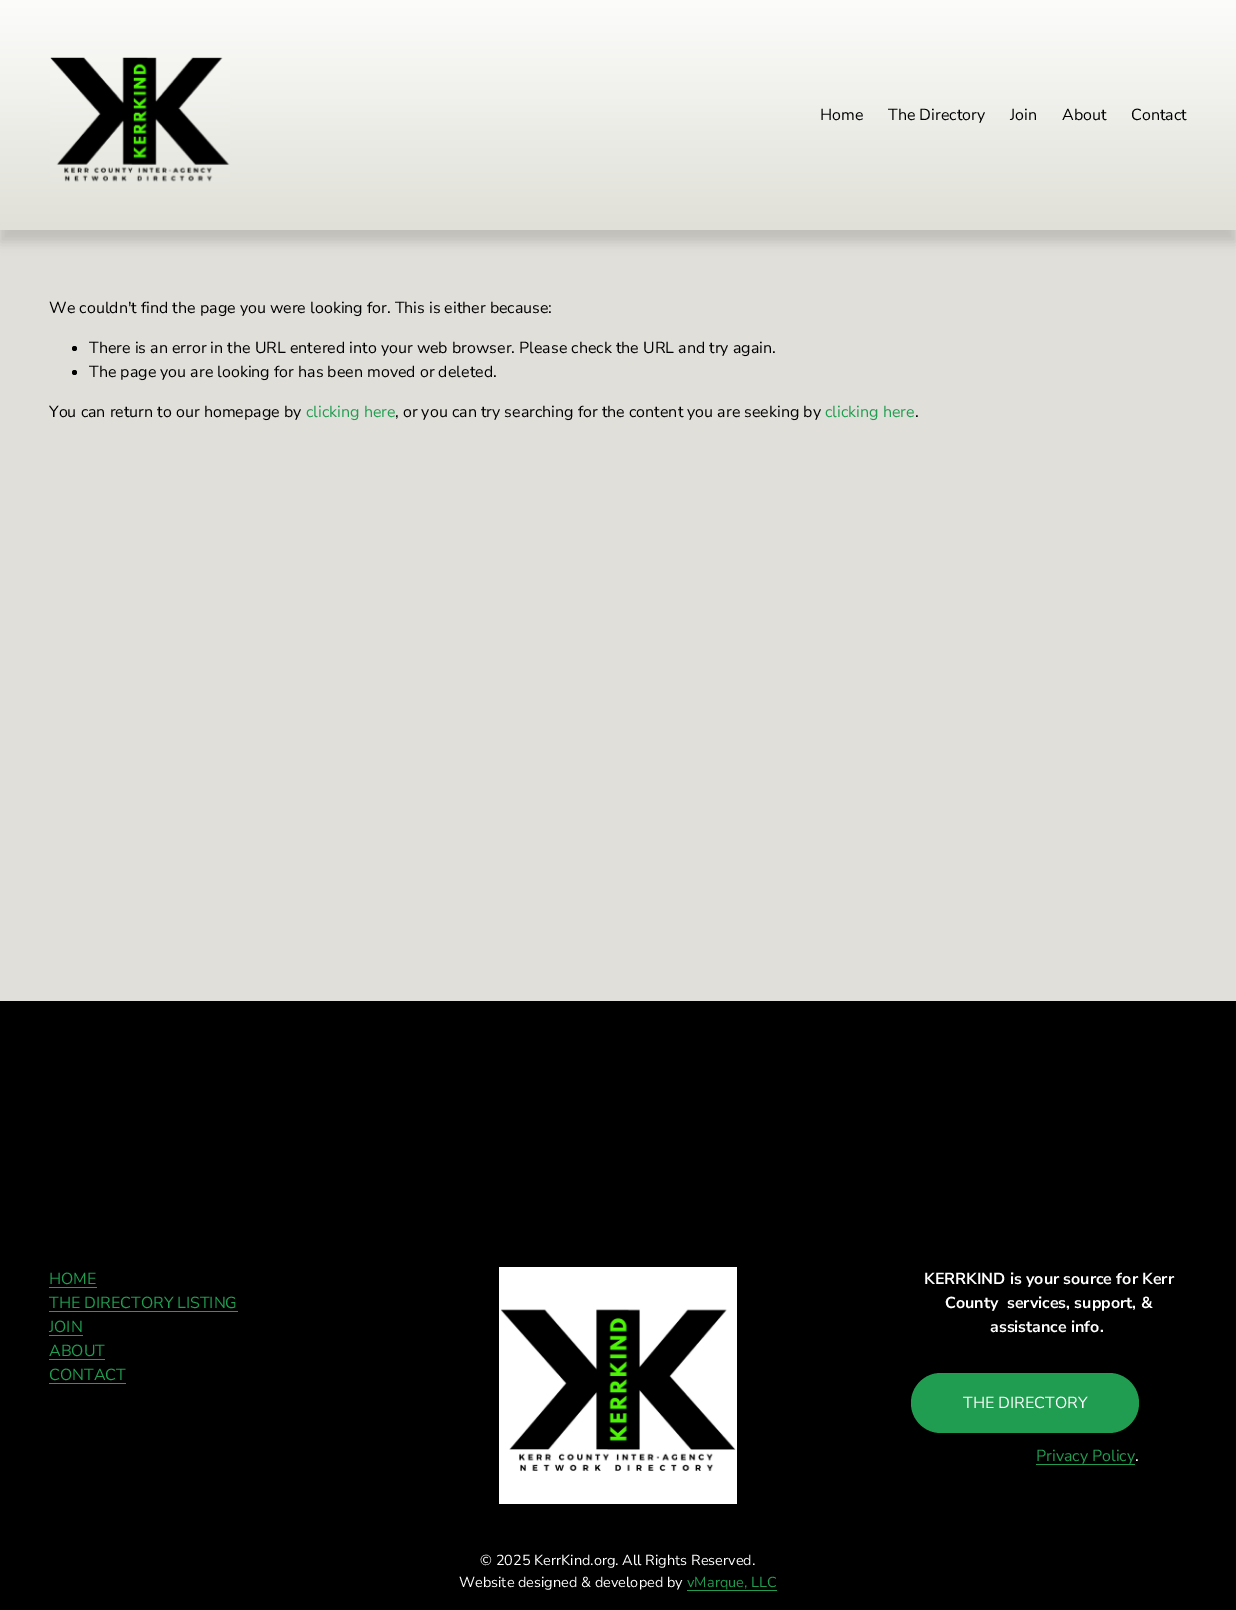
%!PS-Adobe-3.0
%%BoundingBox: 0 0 1236 1610
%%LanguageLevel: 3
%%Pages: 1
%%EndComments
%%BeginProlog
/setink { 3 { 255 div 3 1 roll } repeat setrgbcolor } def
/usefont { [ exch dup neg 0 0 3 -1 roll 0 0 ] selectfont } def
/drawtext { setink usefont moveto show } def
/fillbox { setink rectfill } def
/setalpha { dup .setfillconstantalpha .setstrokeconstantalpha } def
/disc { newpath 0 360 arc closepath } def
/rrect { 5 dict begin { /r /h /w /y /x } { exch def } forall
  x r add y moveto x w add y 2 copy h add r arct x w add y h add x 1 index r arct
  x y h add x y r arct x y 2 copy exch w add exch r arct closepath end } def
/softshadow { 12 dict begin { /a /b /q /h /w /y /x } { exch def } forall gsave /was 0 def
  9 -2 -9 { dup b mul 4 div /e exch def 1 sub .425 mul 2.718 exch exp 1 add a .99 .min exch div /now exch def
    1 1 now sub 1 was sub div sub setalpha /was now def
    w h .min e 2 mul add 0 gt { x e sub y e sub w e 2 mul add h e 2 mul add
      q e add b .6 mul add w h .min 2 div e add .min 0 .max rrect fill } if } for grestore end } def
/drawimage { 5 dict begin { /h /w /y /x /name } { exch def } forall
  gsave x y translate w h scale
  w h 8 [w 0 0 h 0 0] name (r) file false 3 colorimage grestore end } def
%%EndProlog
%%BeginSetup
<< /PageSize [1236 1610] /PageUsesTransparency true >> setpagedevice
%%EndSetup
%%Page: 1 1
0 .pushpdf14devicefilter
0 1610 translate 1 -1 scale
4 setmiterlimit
0 0 1236 1610 225 223 217 fillbox
191 190 184 setink
0 12 1236 230 0 6 1 softshadow
gsave 0 0 moveto 1236 0 lineto 1236 230 lineto 0 230 lineto closepath clip newpath
<< /ShadingType 2 /ColorSpace /DeviceRGB /Coords [618 0 618 230] /Extend [true true] /Function << /FunctionType 2 /Domain [0 1] /C0 [0.988 0.988 0.984] /C1 [0.878 0.878 0.847] /N 1 >> >> shfill grestore
(assets/img1.rgb) 50 57 180 125 drawimage
(Home) 820 120 /NunitoSans-Regular 16 0 0 0 drawtext
(The Directory) 888 120 /NunitoSans-Regular 16 0 0 0 drawtext
(Join) 1010 120 /NunitoSans-Regular 16 0 0 0 drawtext
(About) 1062 120 /NunitoSans-Regular 16 0 0 0 drawtext
(Contact) 1131 120 /NunitoSans-Regular 16 0 0 0 drawtext
(We couldn't find the page you were looking for. This is either because:) 49 313 /NunitoSans-Regular 16 0 0 0 drawtext
74.5 348.5 2.5 disc fill
(There is an error in the URL entered into your web browser. Please check the URL and try again.) 89 353 /NunitoSans-Regular 16 0 0 0 drawtext
74.5 372.5 2.5 disc fill
(The page you are looking for has been moved or deleted.) 89 377 /NunitoSans-Regular 16 0 0 0 drawtext
(You can return to our homepage by) 49 417 /NunitoSans-Regular 16 0 0 0 drawtext
(clicking here) 306 417 /NunitoSans-Regular 16 32 157 80 drawtext
(, or you can try searching for the content you are seeking by) 395 417 /NunitoSans-Regular 16 0 0 0 drawtext
(clicking here) 825 417 /NunitoSans-Regular 16 32 157 80 drawtext
(.) 915 417 /NunitoSans-Regular 16 0 0 0 drawtext
0 1001 1236 609 0 0 0 fillbox
(HOME) 49 1284 /NunitoSans-Regular 16 32 157 80 drawtext
49 1287 48 1 32 157 80 fillbox
(THE DIRECTORY LISTING) 49 1308 /NunitoSans-Regular 16 32 157 80 drawtext
49 1311 189 1 32 157 80 fillbox
(JOIN) 49 1332 /NunitoSans-Regular 16 32 157 80 drawtext
49 1335 34 1 32 157 80 fillbox
(ABOUT) 49 1356 /NunitoSans-Regular 16 32 157 80 drawtext
49 1359 56 1 32 157 80 fillbox
(CONTACT) 49 1380 /NunitoSans-Regular 16 32 157 80 drawtext
49 1383 77 1 32 157 80 fillbox
(assets/img2.rgb) 499 1267 238 237 drawimage
(KERRKIND is your source for Kerr) 924 1284 /NunitoSans-Bold 16 255 255 255 drawtext
(County  services, support, &) 945 1308 /NunitoSans-Bold 16 255 255 255 drawtext
(assistance info.) 990 1332 /NunitoSans-Bold 16 255 255 255 drawtext
32 157 80 setink
911 1373 228 60 30 rrect fill
(THE DIRECTORY) 963 1408 /NunitoSans-Regular 16 255 255 255 drawtext
(Privacy Policy) 1036 1461 /NunitoSans-Regular 16 32 157 80 drawtext
1036 1464 99 1 32 157 80 fillbox
(.) 1135 1461 /NunitoSans-Regular 16 255 255 255 drawtext
(© 2025 KerrKind.org. All Rights Reserved.) 480 1565 /NunitoSans-Regular 14.5 255 255 255 drawtext
(Website designed & developed by) 459 1587 /NunitoSans-Regular 14.5 255 255 255 drawtext
(vMarque, LLC) 687 1587 /NunitoSans-Regular 14.5 32 157 80 drawtext
687 1590 90 1 32 157 80 fillbox
.poppdf14devicefilter showpage
%%EOF
